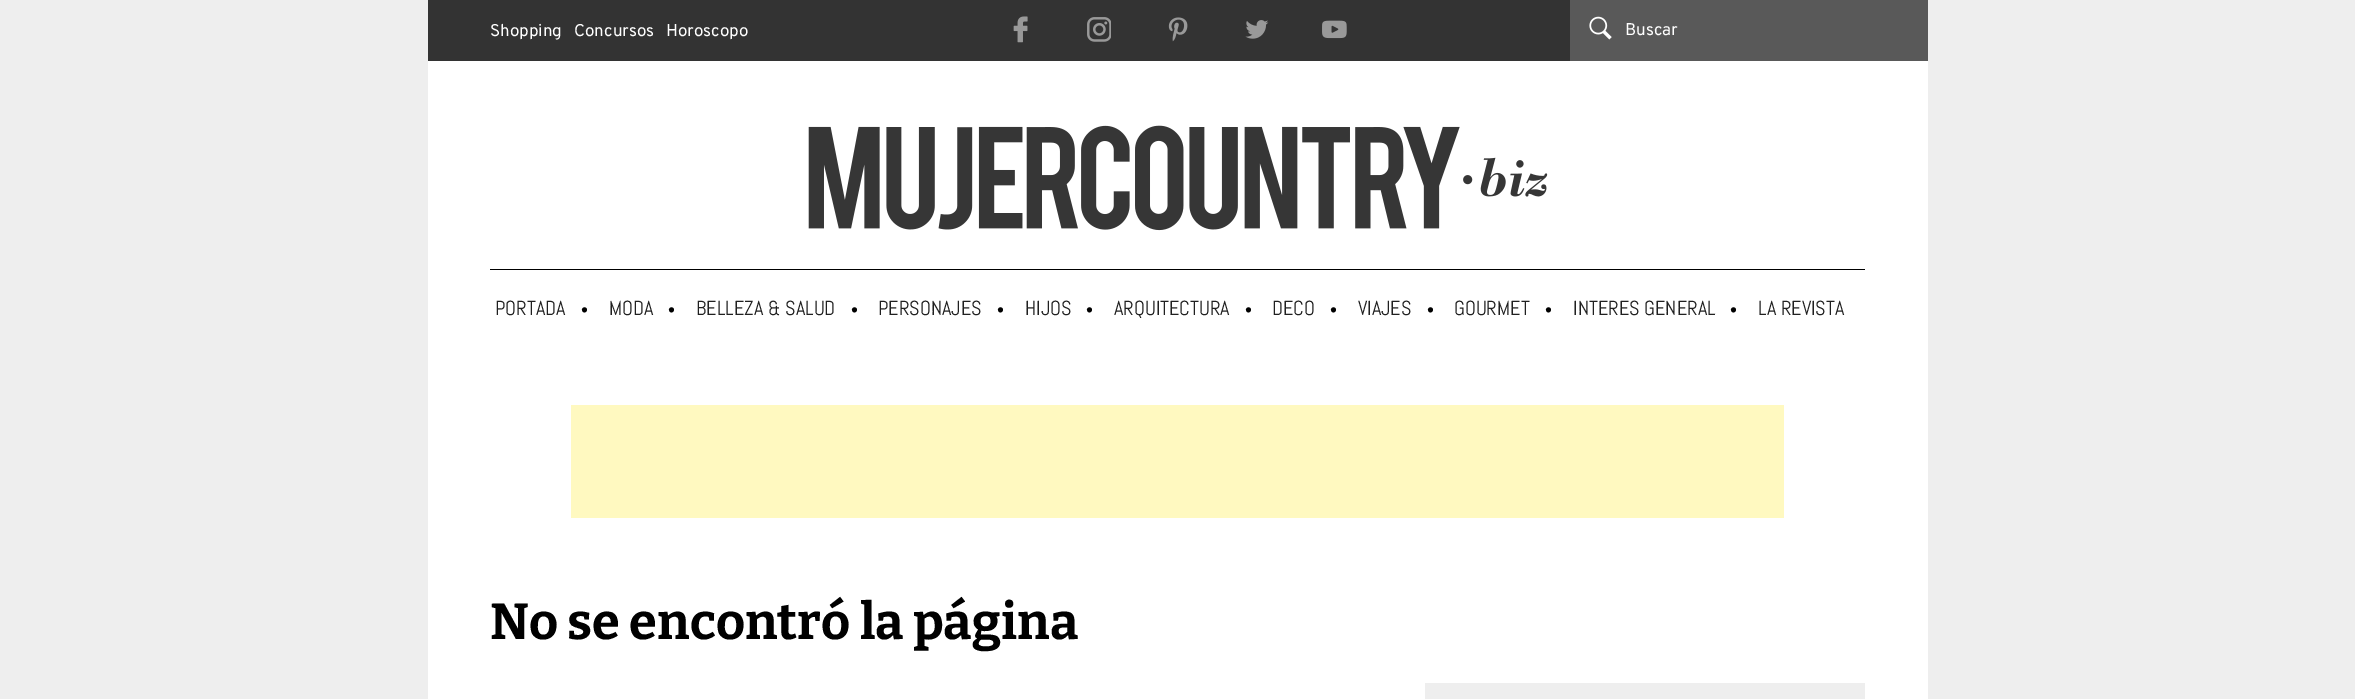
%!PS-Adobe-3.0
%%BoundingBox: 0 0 2355 699
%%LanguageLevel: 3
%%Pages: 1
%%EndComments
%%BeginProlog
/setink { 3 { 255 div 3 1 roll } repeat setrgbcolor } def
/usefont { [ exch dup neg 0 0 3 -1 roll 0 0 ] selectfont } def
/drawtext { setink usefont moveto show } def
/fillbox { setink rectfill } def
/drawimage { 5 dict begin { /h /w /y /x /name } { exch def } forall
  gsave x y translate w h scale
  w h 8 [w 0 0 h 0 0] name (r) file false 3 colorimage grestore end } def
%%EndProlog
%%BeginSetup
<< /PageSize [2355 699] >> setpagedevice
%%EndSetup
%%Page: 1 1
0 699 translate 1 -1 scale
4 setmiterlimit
0 0 2355 699 238 238 238 fillbox
428 61 1500 638 255 255 255 fillbox
428 0 1142 61 51 51 51 fillbox
(Shopping) 490 36 /Overpass-Regular 17 255 255 255 drawtext
(Concursos) 574 36 /Overpass-Regular 17 255 255 255 drawtext
(Horoscopo) 666 36 /Overpass-Regular 17 255 255 255 drawtext
(assets/img1.rgb) 1013 16 15 27 drawimage
(assets/img2.rgb) 1087 17 24 25 drawimage
(assets/img3.rgb) 1168 17 20 25 drawimage
(assets/img4.rgb) 1245 20 24 19 drawimage
(assets/img5.rgb) 1322 20 25 19 drawimage
1570 0 358 61 89 89 89 fillbox
(assets/img6.rgb) 1589 16 23 24 drawimage
(Buscar) 1625 35 /Overpass-Regular 17 255 255 255 drawtext
(assets/img7.rgb) 808 125 740 106 drawimage
490 269 1375 1 0 0 0 fillbox
(PORTADA) 495 315 /Abel-Regular 20.25 32 32 32 drawtext
(•) 581 315 /Abel-Regular 15 0 0 0 drawtext
(MODA) 609 315 /Abel-Regular 20.25 32 32 32 drawtext
(•) 668 315 /Abel-Regular 15 0 0 0 drawtext
(BELLEZA & SALUD) 696 315 /Abel-Regular 20.25 32 32 32 drawtext
(•) 851 315 /Abel-Regular 15 0 0 0 drawtext
(PERSONAJES) 878 315 /Abel-Regular 20.25 32 32 32 drawtext
(•) 997 315 /Abel-Regular 15 0 0 0 drawtext
(HIJOS) 1025 315 /Abel-Regular 20.25 32 32 32 drawtext
(•) 1086 315 /Abel-Regular 15 0 0 0 drawtext
(ARQUITECTURA) 1114 315 /Abel-Regular 20.25 32 32 32 drawtext
(•) 1245 315 /Abel-Regular 15 0 0 0 drawtext
(DECO) 1272 315 /Abel-Regular 20.25 32 32 32 drawtext
(•) 1330 315 /Abel-Regular 15 0 0 0 drawtext
(VIAJES) 1358 315 /Abel-Regular 20.25 32 32 32 drawtext
(•) 1427 315 /Abel-Regular 15 0 0 0 drawtext
(GOURMET) 1454 315 /Abel-Regular 20.25 32 32 32 drawtext
(•) 1545 315 /Abel-Regular 15 0 0 0 drawtext
(INTERES GENERAL) 1573 315 /Abel-Regular 20.25 32 32 32 drawtext
(•) 1730 315 /Abel-Regular 15 0 0 0 drawtext
(LA REVISTA) 1758 315 /Abel-Regular 20.25 32 32 32 drawtext
571 405 1213 113 255 249 192 fillbox
(No se encontró la página) 490 639 /Bitter-Bold 50.6 0 0 0 drawtext
1425 683 440 16 238 238 238 fillbox
showpage
%%EOF
